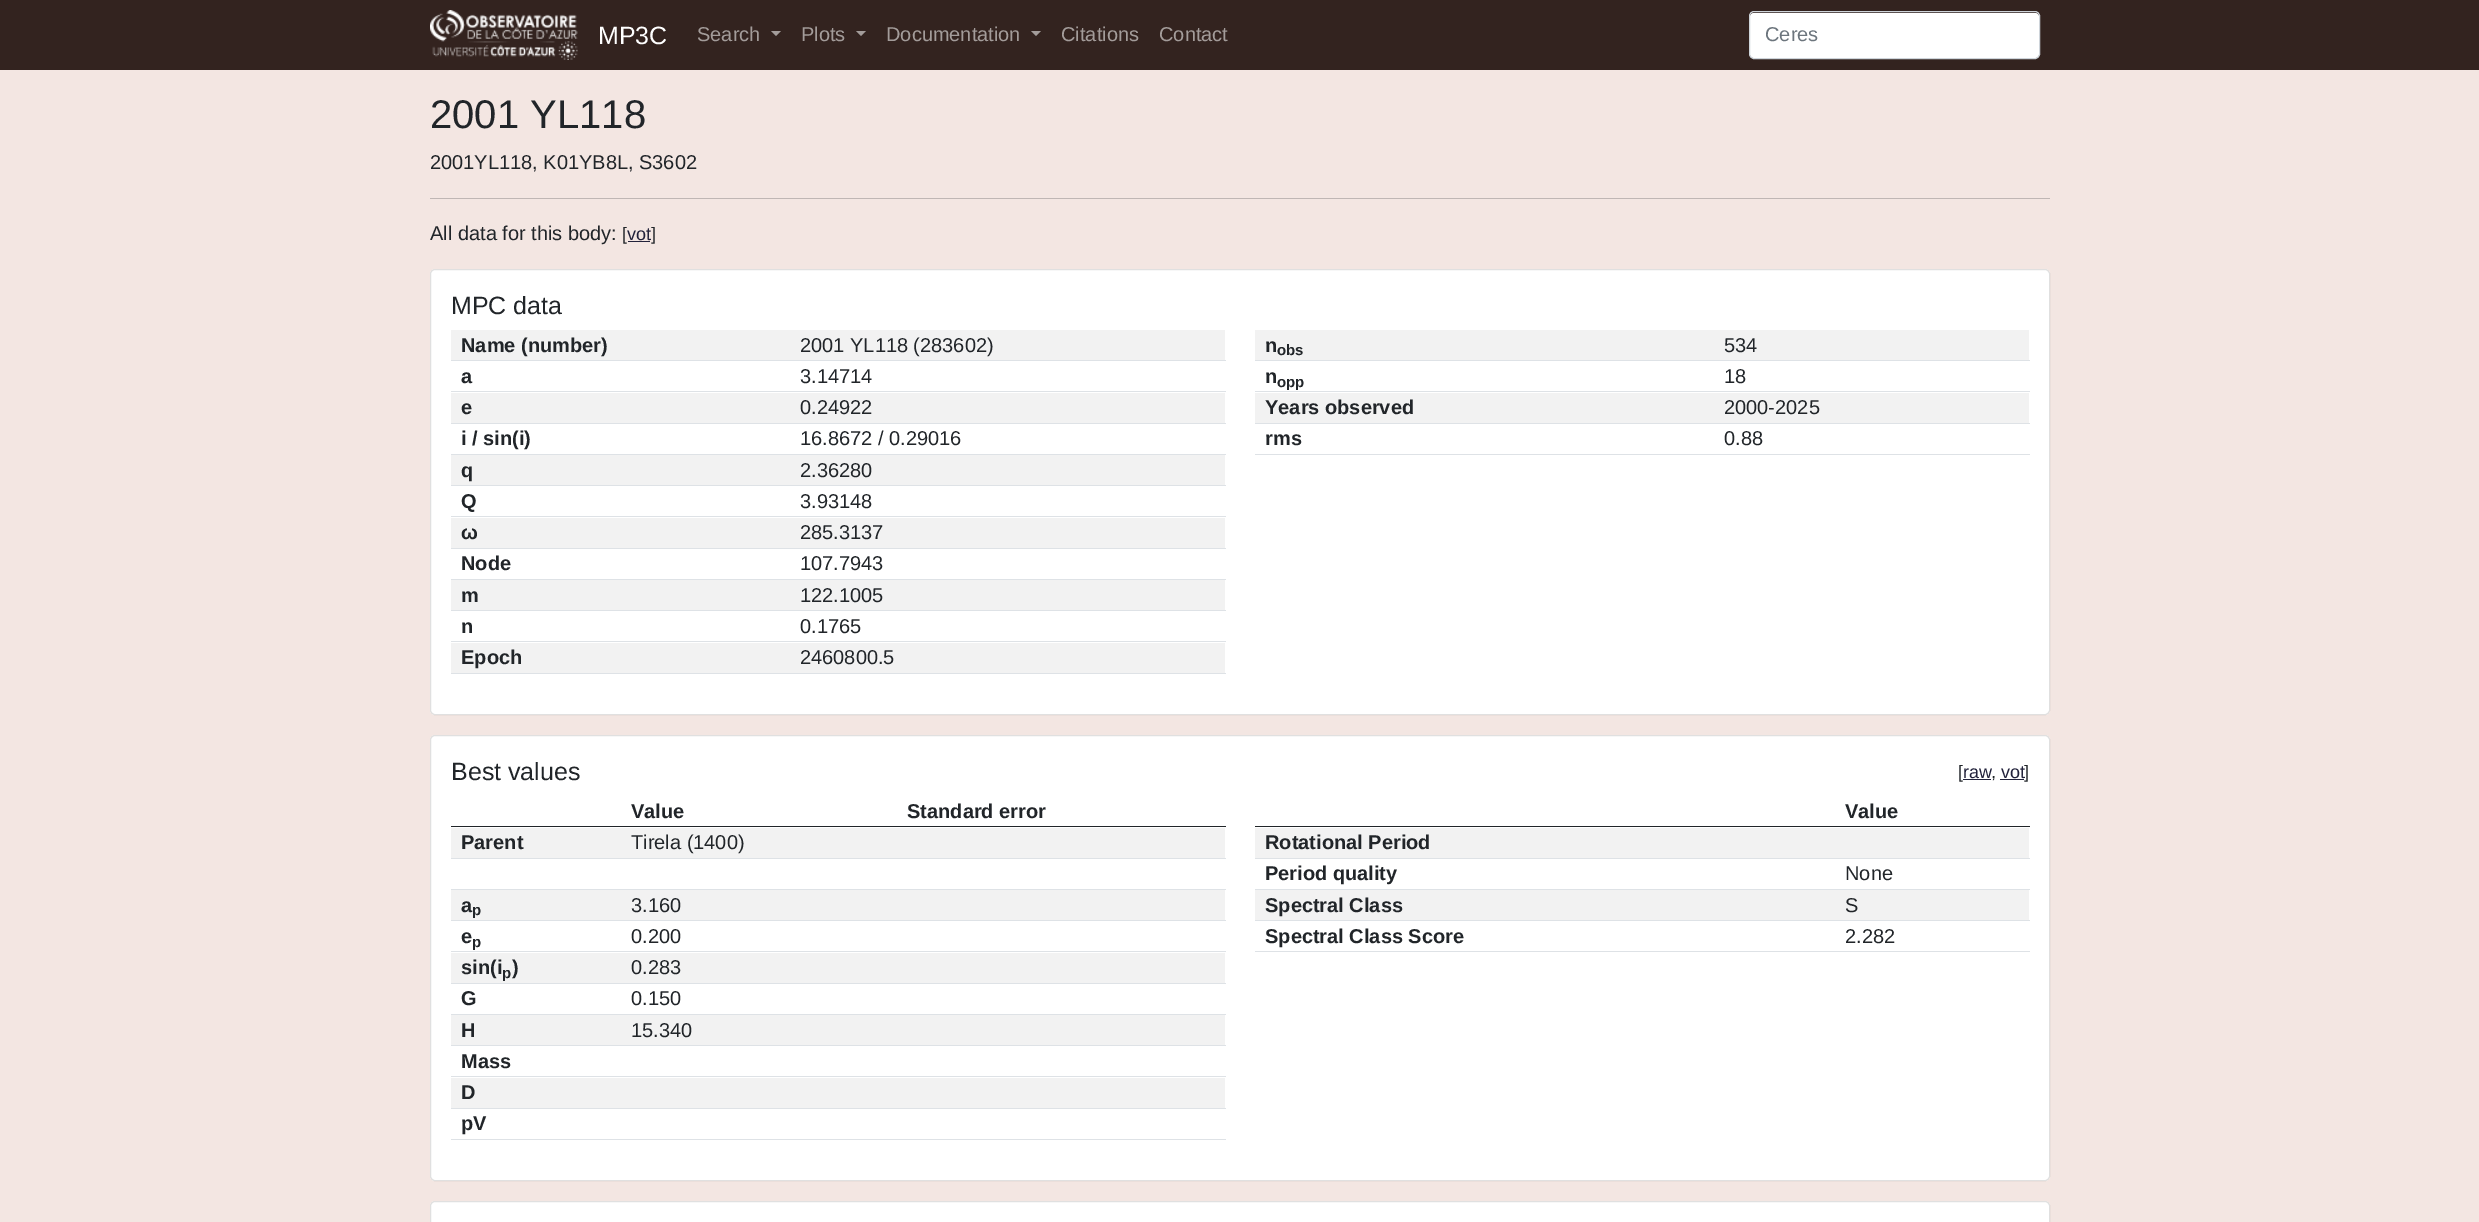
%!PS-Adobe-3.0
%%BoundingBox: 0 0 2479 1222
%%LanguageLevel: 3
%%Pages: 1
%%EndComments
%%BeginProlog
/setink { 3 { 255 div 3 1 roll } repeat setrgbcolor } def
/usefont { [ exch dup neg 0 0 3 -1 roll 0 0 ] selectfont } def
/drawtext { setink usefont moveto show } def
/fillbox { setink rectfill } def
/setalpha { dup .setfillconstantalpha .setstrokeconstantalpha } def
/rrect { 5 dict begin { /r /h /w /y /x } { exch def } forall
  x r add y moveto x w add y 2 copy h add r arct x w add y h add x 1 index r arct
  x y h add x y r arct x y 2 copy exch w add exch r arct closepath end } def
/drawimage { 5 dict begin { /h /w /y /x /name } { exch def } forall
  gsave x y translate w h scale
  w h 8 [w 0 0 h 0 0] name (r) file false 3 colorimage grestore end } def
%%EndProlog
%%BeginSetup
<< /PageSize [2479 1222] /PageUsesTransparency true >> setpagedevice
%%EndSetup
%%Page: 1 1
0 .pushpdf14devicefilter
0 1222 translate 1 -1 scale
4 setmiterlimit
0 0 2479 1222 243 230 226 fillbox
0 0 2479 70 51 35 31 fillbox
(assets/img1.rgb) 430 10 148 50 drawimage
(MP3C) 598 44 /LiberationSans-Regular 25 255 255 255 drawtext
(Search) 697 41 /LiberationSans-Regular 20 163 156 154 drawtext
771 31 moveto 781 31 lineto 776 36 lineto closepath fill
(Plots) 801 41 /LiberationSans-Regular 20 163 156 154 drawtext
856 31 moveto 866 31 lineto 861 36 lineto closepath fill
(Documentation) 886 41 /LiberationSans-Regular 20 163 156 154 drawtext
1031 31 moveto 1041 31 lineto 1036 36 lineto closepath fill
(Citations) 1061 41 /LiberationSans-Regular 20 163 156 154 drawtext
(Contact) 1159 41 /LiberationSans-Regular 20 163 156 154 drawtext
255 255 255 setink
1750 13 289 45 4 rrect fill
206 212 218 setink
1749.5 11.5 290 47 4.5 rrect stroke
(Ceres) 1765 41 /LiberationSans-Regular 20 108 117 125 drawtext
(2001 YL118) 430 128 /LiberationSans-Regular 40 33 37 41 drawtext
(2001YL118, K01YB8L, S3602) 430 169 /LiberationSans-Regular 20 33 37 41 drawtext
430 198 1620 1 191 182 180 fillbox
(All data for this body:) 430 240 /LiberationSans-Regular 20 33 37 41 drawtext
([) 622 240 /LiberationSans-Regular 18 33 37 41 drawtext
628 241 22 1 34 34 59 fillbox
(vot) 627 240 /LiberationSans-Regular 18 34 34 59 drawtext
(]) 651 240 /LiberationSans-Regular 18 33 37 41 drawtext
255 255 255 setink
430 269 1620 446 5 rrect fill
0.12 setalpha
0 0 0 setink
430.5 269.5 1619 445 4.5 rrect stroke
1 setalpha
(MPC data) 451 314 /LiberationSans-Regular 25 33 37 41 drawtext
451 330 774 30 242 242 242 fillbox
(Name \(number\)) 461 352 /LiberationSans-Bold 20 33 37 41 drawtext
451 360 775 1 222 226 230 fillbox
(2001 YL118 \(283602\)) 800 352 /LiberationSans-Regular 20 33 37 41 drawtext
(a) 461 383 /LiberationSans-Bold 20 33 37 41 drawtext
451 391 775 1 222 226 230 fillbox
(3.14714) 800 383 /LiberationSans-Regular 20 33 37 41 drawtext
451 393 774 30 242 242 242 fillbox
(e) 461 414 /LiberationSans-Bold 20 33 37 41 drawtext
451 423 775 1 222 226 230 fillbox
(0.24922) 800 414 /LiberationSans-Regular 20 33 37 41 drawtext
(i / sin\(i\)) 461 445 /LiberationSans-Bold 20 33 37 41 drawtext
451 454 775 1 222 226 230 fillbox
(16.8672 / 0.29016) 800 445 /LiberationSans-Regular 20 33 37 41 drawtext
451 455 774 30 242 242 242 fillbox
(q) 461 477 /LiberationSans-Bold 20 33 37 41 drawtext
451 485 775 1 222 226 230 fillbox
(2.36280) 800 477 /LiberationSans-Regular 20 33 37 41 drawtext
(Q) 461 508 /LiberationSans-Bold 20 33 37 41 drawtext
451 516 775 1 222 226 230 fillbox
(3.93148) 800 508 /LiberationSans-Regular 20 33 37 41 drawtext
451 518 774 30 242 242 242 fillbox
(ω) 461 539 /LiberationSans-Bold 20 33 37 41 drawtext
451 548 775 1 222 226 230 fillbox
(285.3137) 800 539 /LiberationSans-Regular 20 33 37 41 drawtext
(Node) 461 570 /LiberationSans-Bold 20 33 37 41 drawtext
451 579 775 1 222 226 230 fillbox
(107.7943) 800 570 /LiberationSans-Regular 20 33 37 41 drawtext
451 580 774 30 242 242 242 fillbox
(m) 461 602 /LiberationSans-Bold 20 33 37 41 drawtext
451 610 775 1 222 226 230 fillbox
(122.1005) 800 602 /LiberationSans-Regular 20 33 37 41 drawtext
(n) 461 633 /LiberationSans-Bold 20 33 37 41 drawtext
451 641 775 1 222 226 230 fillbox
(0.1765) 800 633 /LiberationSans-Regular 20 33 37 41 drawtext
451 643 774 30 242 242 242 fillbox
(Epoch) 461 664 /LiberationSans-Bold 20 33 37 41 drawtext
451 673 775 1 222 226 230 fillbox
(2460800.5) 800 664 /LiberationSans-Regular 20 33 37 41 drawtext
1255 330 774 30 242 242 242 fillbox
(n) 1265 352 /LiberationSans-Bold 20 33 37 41 drawtext
(obs) 1277 355 /LiberationSans-Bold 15 33 37 41 drawtext
1255 360 775 1 222 226 230 fillbox
(534) 1724 352 /LiberationSans-Regular 20 33 37 41 drawtext
(n) 1265 383 /LiberationSans-Bold 20 33 37 41 drawtext
(opp) 1277 387 /LiberationSans-Bold 15 33 37 41 drawtext
1255 391 775 1 222 226 230 fillbox
(18) 1724 383 /LiberationSans-Regular 20 33 37 41 drawtext
1255 393 774 30 242 242 242 fillbox
(Years observed) 1265 414 /LiberationSans-Bold 20 33 37 41 drawtext
1255 423 775 1 222 226 230 fillbox
(2000-2025) 1724 414 /LiberationSans-Regular 20 33 37 41 drawtext
(rms) 1265 445 /LiberationSans-Bold 20 33 37 41 drawtext
1255 454 775 1 222 226 230 fillbox
(0.88) 1724 445 /LiberationSans-Regular 20 33 37 41 drawtext
255 255 255 setink
430 735 1620 446 5 rrect fill
0.12 setalpha
0 0 0 setink
430.5 735.5 1619 445 4.5 rrect stroke
1 setalpha
(Best values) 451 780 /LiberationSans-Regular 25 33 37 41 drawtext
([) 1958 778 /LiberationSans-Regular 18 33 37 41 drawtext
(raw) 1963 778 /LiberationSans-Regular 18 34 34 59 drawtext
(,) 1991 778 /LiberationSans-Regular 18 33 37 41 drawtext
1963 779 28 1 34 34 59 fillbox
2000 779 24 1 34 34 59 fillbox
(vot) 2001 778 /LiberationSans-Regular 18 34 34 59 drawtext
(]) 2024 778 /LiberationSans-Regular 18 33 37 41 drawtext
(Value) 631 818 /LiberationSans-Bold 20 33 37 41 drawtext
451 826 775 1 33 37 41 fillbox
(Standard error) 907 818 /LiberationSans-Bold 20 33 37 41 drawtext
451 828 774 30 242 242 242 fillbox
(Parent) 461 849 /LiberationSans-Bold 20 33 37 41 drawtext
(Tirela \(1400\)) 631 849 /LiberationSans-Regular 20 33 37 41 drawtext
451 858 775 1 222 226 230 fillbox
451 889 775 1 222 226 230 fillbox
451 890 774 30 242 242 242 fillbox
(a) 461 912 /LiberationSans-Bold 20 33 37 41 drawtext
(p) 472 915 /LiberationSans-Bold 15 33 37 41 drawtext
(3.160) 631 912 /LiberationSans-Regular 20 33 37 41 drawtext
451 920 775 1 222 226 230 fillbox
(e) 461 943 /LiberationSans-Bold 20 33 37 41 drawtext
(p) 472 947 /LiberationSans-Bold 15 33 37 41 drawtext
(0.200) 631 943 /LiberationSans-Regular 20 33 37 41 drawtext
451 951 775 1 222 226 230 fillbox
451 953 774 30 242 242 242 fillbox
(sin\(i) 461 974 /LiberationSans-Bold 20 33 37 41 drawtext
(p) 502 978 /LiberationSans-Bold 15 33 37 41 drawtext
(\)) 512 974 /LiberationSans-Bold 20 33 37 41 drawtext
(0.283) 631 974 /LiberationSans-Regular 20 33 37 41 drawtext
451 983 775 1 222 226 230 fillbox
(G) 461 1005 /LiberationSans-Bold 20 33 37 41 drawtext
(0.150) 631 1005 /LiberationSans-Regular 20 33 37 41 drawtext
451 1014 775 1 222 226 230 fillbox
451 1015 774 30 242 242 242 fillbox
(H) 461 1037 /LiberationSans-Bold 20 33 37 41 drawtext
(15.340) 631 1037 /LiberationSans-Regular 20 33 37 41 drawtext
451 1045 775 1 222 226 230 fillbox
(Mass) 461 1068 /LiberationSans-Bold 20 33 37 41 drawtext
451 1076 775 1 222 226 230 fillbox
451 1078 774 30 242 242 242 fillbox
(D) 461 1099 /LiberationSans-Bold 20 33 37 41 drawtext
451 1108 775 1 222 226 230 fillbox
(pV) 461 1130 /LiberationSans-Bold 20 33 37 41 drawtext
451 1139 775 1 222 226 230 fillbox
1255 826 775 1 33 37 41 fillbox
(Value) 1845 818 /LiberationSans-Bold 20 33 37 41 drawtext
1255 828 774 30 242 242 242 fillbox
(Rotational Period) 1265 849 /LiberationSans-Bold 20 33 37 41 drawtext
1255 858 775 1 222 226 230 fillbox
(Period quality) 1265 880 /LiberationSans-Bold 20 33 37 41 drawtext
1255 889 775 1 222 226 230 fillbox
(None) 1845 880 /LiberationSans-Regular 20 33 37 41 drawtext
1255 890 774 30 242 242 242 fillbox
(Spectral Class) 1265 912 /LiberationSans-Bold 20 33 37 41 drawtext
1255 920 775 1 222 226 230 fillbox
(S) 1845 912 /LiberationSans-Regular 20 33 37 41 drawtext
(Spectral Class Score) 1265 943 /LiberationSans-Bold 20 33 37 41 drawtext
1255 951 775 1 222 226 230 fillbox
(2.282) 1845 943 /LiberationSans-Regular 20 33 37 41 drawtext
255 255 255 setink
430 1201 1620 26 5 rrect fill
0.12 setalpha
0 0 0 setink
430.5 1201.5 1619 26 4.5 rrect stroke
.poppdf14devicefilter showpage
%%EOF
